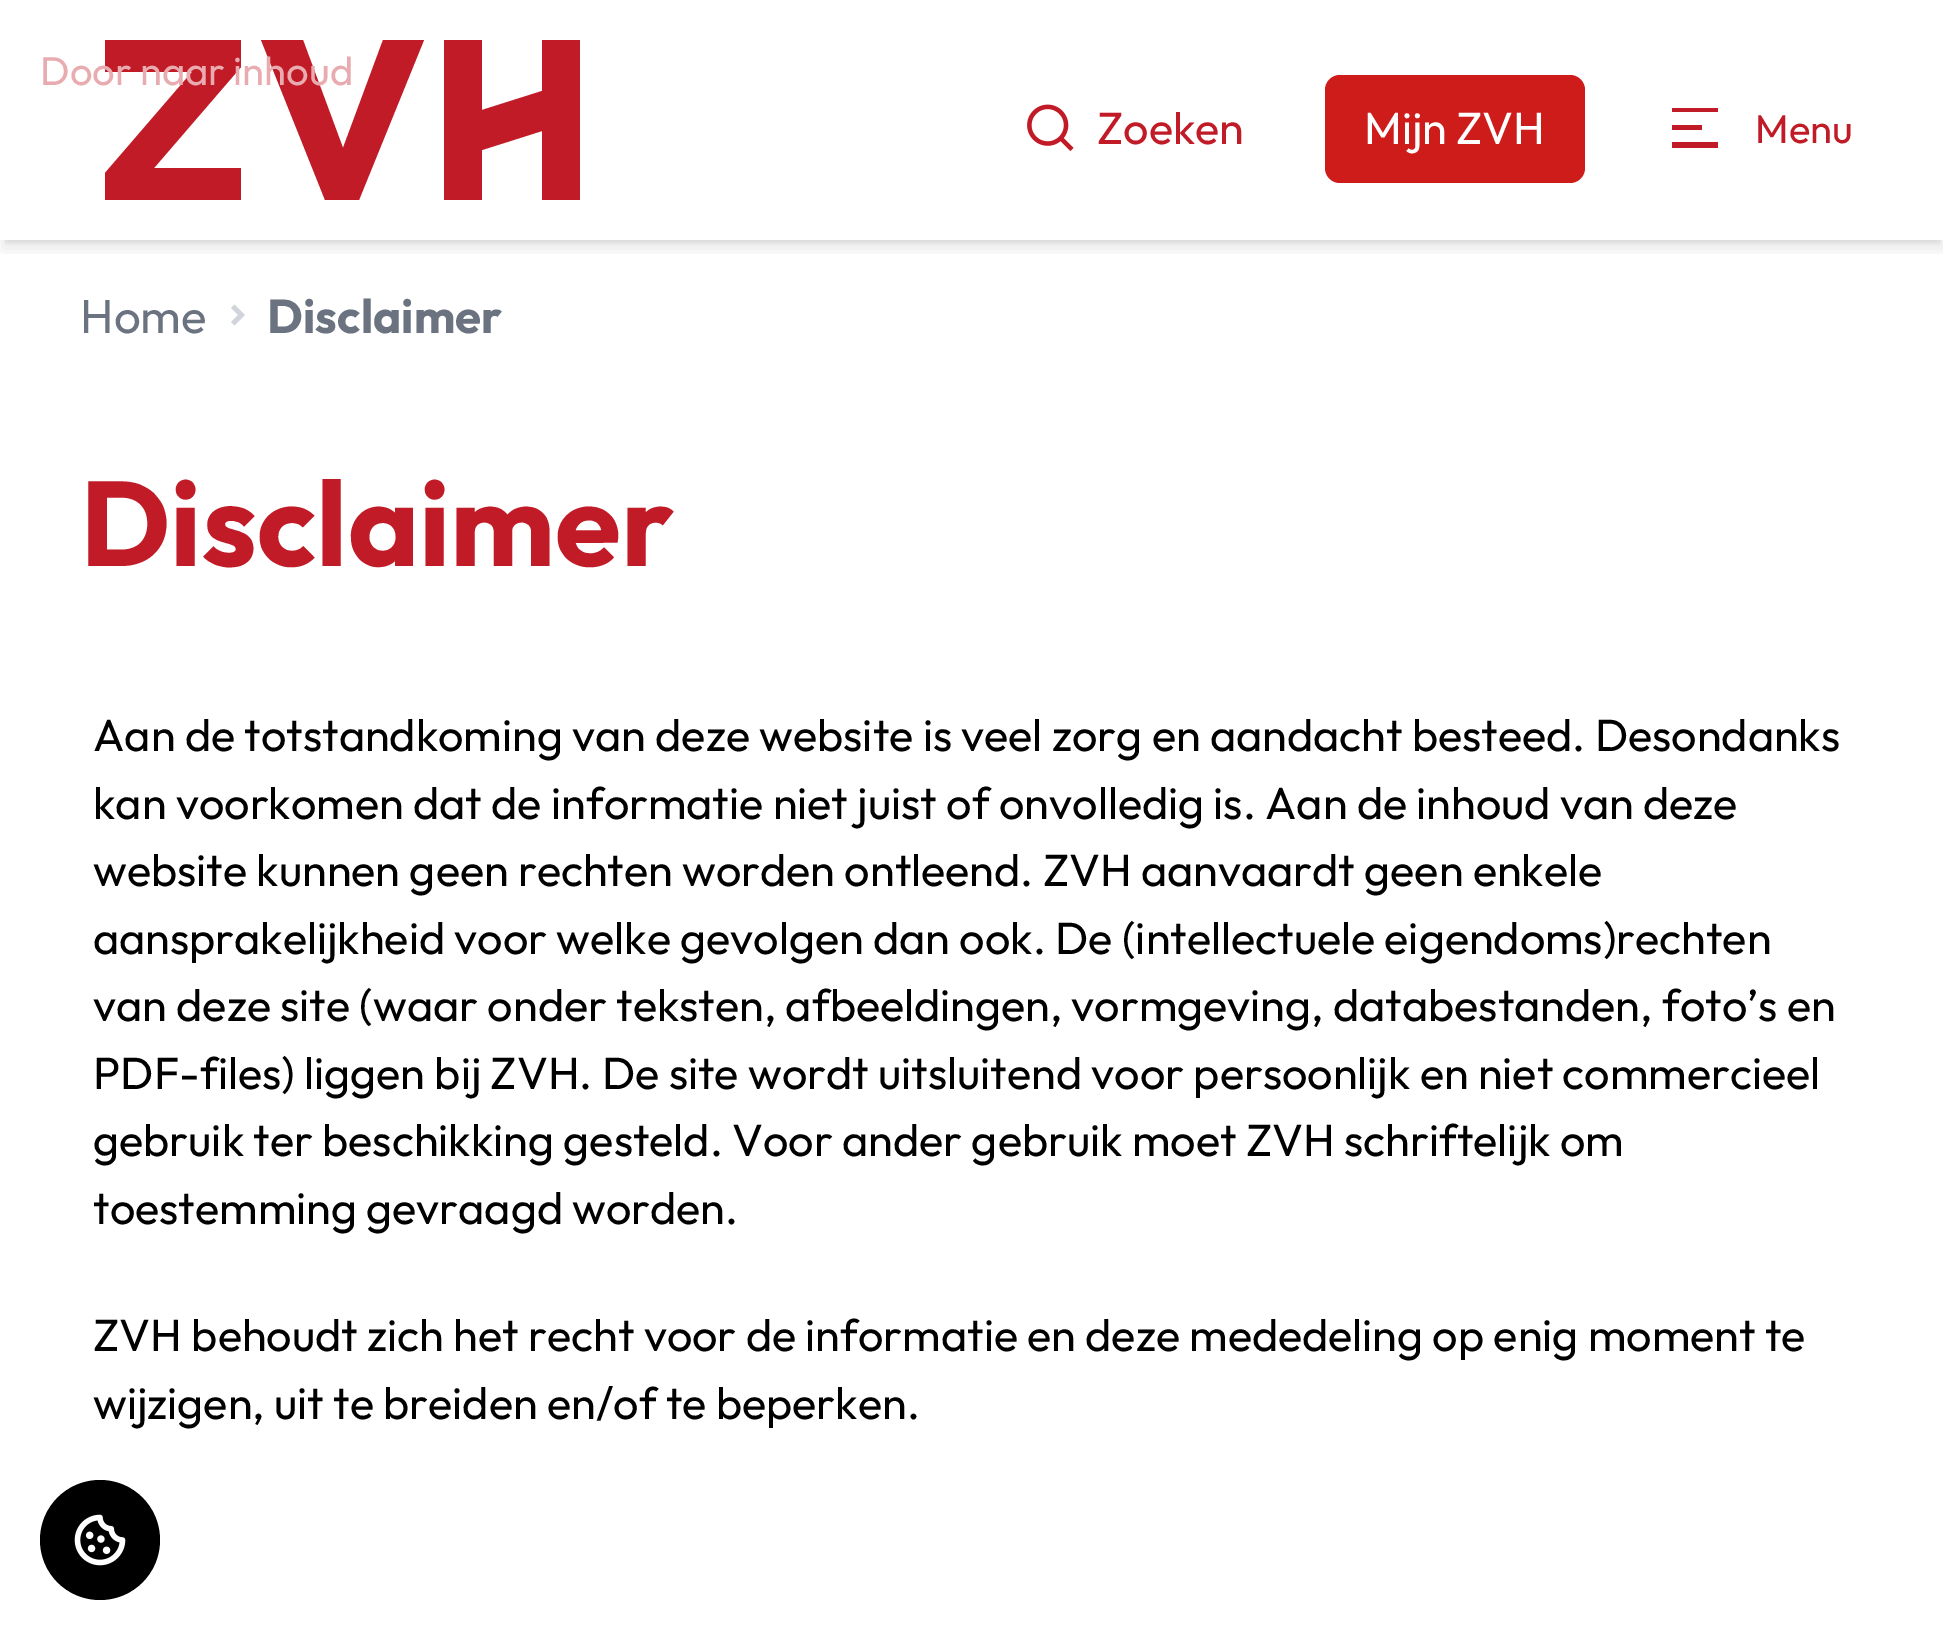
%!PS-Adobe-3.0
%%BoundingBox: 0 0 1943 1639
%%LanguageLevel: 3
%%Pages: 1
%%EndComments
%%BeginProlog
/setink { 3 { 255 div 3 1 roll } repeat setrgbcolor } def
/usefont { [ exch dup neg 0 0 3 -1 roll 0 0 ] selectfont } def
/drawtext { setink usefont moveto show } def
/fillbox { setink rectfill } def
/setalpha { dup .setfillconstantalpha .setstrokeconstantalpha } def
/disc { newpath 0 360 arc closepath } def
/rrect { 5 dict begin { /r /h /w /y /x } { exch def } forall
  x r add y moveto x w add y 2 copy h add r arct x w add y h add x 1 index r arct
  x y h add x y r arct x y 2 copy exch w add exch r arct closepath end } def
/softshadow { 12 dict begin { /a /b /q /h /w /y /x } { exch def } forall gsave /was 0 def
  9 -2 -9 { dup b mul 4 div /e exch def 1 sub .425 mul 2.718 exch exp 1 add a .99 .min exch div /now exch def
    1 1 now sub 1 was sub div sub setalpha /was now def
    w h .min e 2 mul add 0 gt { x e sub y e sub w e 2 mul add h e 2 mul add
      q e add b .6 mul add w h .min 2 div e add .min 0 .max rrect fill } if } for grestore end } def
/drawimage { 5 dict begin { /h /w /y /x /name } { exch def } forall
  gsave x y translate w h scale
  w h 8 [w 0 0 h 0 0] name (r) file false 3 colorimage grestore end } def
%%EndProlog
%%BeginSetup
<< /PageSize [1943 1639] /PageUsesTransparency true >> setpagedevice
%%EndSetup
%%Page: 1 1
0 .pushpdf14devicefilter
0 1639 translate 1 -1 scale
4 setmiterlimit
0 0 1943 1639 255 255 255 fillbox
gsave
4 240 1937 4 rectclip
0 0 0 setink
5 10 1935 230 0 5 0.1 softshadow
grestore
gsave
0 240 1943 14 rectclip
0 0 0 setink
3 13 1940 235 0 7.5 0.1 softshadow
grestore
gsave
105 40 475 160 rectclip
192 27 38 setink
105 173 moveto 192 72 lineto 105 72 lineto 105 40 lineto 241 40 lineto 241 67 lineto 154 168 lineto 241 168 lineto 241 200 lineto 105 200 lineto closepath 261 40 moveto 303 40 lineto 343 148 lineto 383 40 lineto 424 40 lineto 359 200 lineto 325 200 lineto closepath 581 200 moveto 542 200 lineto 542 131 lineto 482 150 lineto 482 200 lineto 444 200 lineto 444 40 lineto 482 40 lineto 482 110 lineto 542 91 lineto 542 40 lineto 581 40 lineto closepath fill
grestore
(Door naar inhoud) 40 85 /Outfit-Regular 40 232 171 175 drawtext
(assets/img1.rgb) 1027 104 47 47 drawimage
(Zoeken) 1097 144 /Outfit-Regular 45 192 27 38 drawtext
206 28 26 setink
1325 75 260 108 15 rrect fill
(Mijn ZVH) 1364 144 /Outfit-Regular 45 255 255 255 drawtext
192 27 38 setink
1672 108 moveto 1718 108 lineto 1718 112 lineto 1672 112 lineto closepath 1672 125 moveto 1702 125 lineto 1702 130 lineto 1672 130 lineto closepath 1672 142 moveto 1718 142 lineto 1718 148 lineto 1672 148 lineto closepath fill
(Menu) 1755 143 /Outfit-Regular 40 192 27 38 drawtext
(Home) 80 333 /Outfit-Regular 47.5 107 114 128 drawtext
209 213 219 setink
238 315 moveto 231 308 lineto 234.5 304.5 lineto 245 315 lineto 234.5 325.5 lineto 231 322 lineto closepath fill
(Disclaimer) 267 333 /Outfit-Bold 47.5 107 114 128 drawtext
(Disclaimer) 80 566 /Outfit-Bold 120 192 27 38 drawtext
(Aan de totstandkoming van deze website is veel zorg en aandacht besteed. Desondanks) 93 751 /Outfit-Regular 45 0 0 0 drawtext
(kan voorkomen dat de informatie niet juist of onvolledig is. Aan de inhoud van deze) 93 819 /Outfit-Regular 45 0 0 0 drawtext
(website kunnen geen rechten worden ontleend. ZVH aanvaardt geen enkele) 93 886 /Outfit-Regular 45 0 0 0 drawtext
(aansprakelijkheid voor welke gevolgen dan ook. De \(intellectuele eigendoms\)rechten) 93 954 /Outfit-Regular 45 0 0 0 drawtext
(van deze site \(waar onder teksten, afbeeldingen, vormgeving, databestanden, foto’s en) 93 1021 /Outfit-Regular 45 0 0 0 drawtext
(PDF-files\) liggen bij ZVH. De site wordt uitsluitend voor persoonlijk en niet commercieel) 93 1089 /Outfit-Regular 45 0 0 0 drawtext
(gebruik ter beschikking gesteld. Voor ander gebruik moet ZVH schriftelijk om) 93 1156 /Outfit-Regular 45 0 0 0 drawtext
(toestemming gevraagd worden.) 93 1224 /Outfit-Regular 45 0 0 0 drawtext
(ZVH behoudt zich het recht voor de informatie en deze mededeling op enig moment te) 93 1351 /Outfit-Regular 45 0 0 0 drawtext
(wijzigen, uit te breiden en/of te beperken.) 93 1419 /Outfit-Regular 45 0 0 0 drawtext
100 1540 60 disc fill
(assets/img2.rgb) 74 1514 52 52 drawimage
.poppdf14devicefilter showpage
%%EOF
